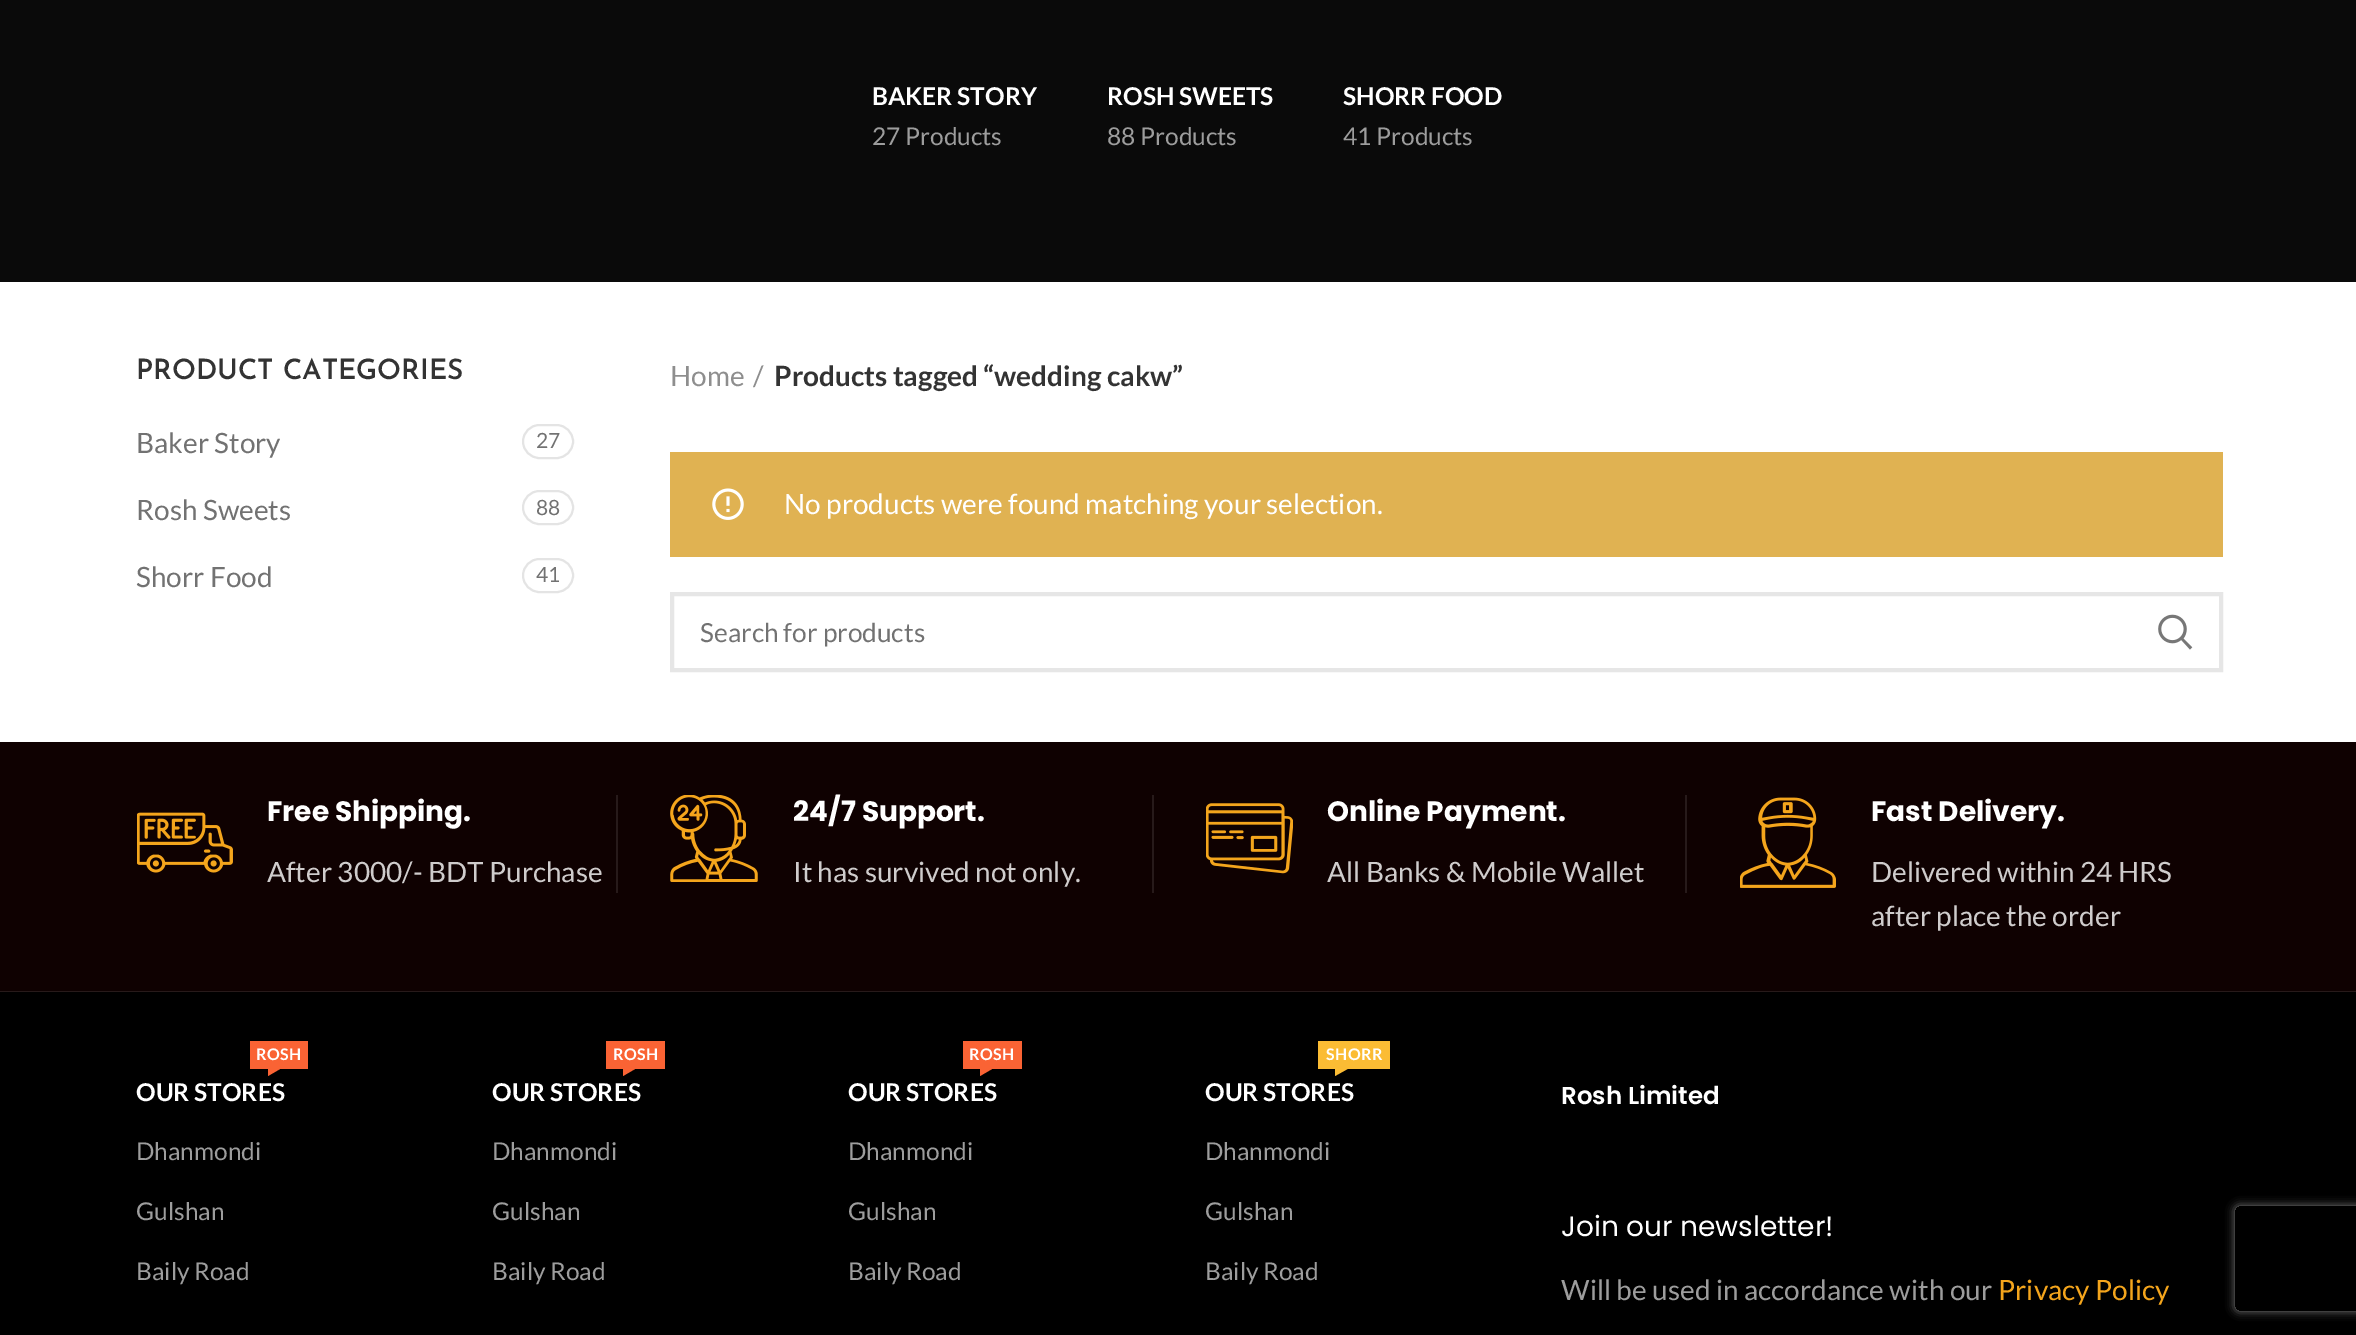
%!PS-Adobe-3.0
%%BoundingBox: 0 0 2356 1335
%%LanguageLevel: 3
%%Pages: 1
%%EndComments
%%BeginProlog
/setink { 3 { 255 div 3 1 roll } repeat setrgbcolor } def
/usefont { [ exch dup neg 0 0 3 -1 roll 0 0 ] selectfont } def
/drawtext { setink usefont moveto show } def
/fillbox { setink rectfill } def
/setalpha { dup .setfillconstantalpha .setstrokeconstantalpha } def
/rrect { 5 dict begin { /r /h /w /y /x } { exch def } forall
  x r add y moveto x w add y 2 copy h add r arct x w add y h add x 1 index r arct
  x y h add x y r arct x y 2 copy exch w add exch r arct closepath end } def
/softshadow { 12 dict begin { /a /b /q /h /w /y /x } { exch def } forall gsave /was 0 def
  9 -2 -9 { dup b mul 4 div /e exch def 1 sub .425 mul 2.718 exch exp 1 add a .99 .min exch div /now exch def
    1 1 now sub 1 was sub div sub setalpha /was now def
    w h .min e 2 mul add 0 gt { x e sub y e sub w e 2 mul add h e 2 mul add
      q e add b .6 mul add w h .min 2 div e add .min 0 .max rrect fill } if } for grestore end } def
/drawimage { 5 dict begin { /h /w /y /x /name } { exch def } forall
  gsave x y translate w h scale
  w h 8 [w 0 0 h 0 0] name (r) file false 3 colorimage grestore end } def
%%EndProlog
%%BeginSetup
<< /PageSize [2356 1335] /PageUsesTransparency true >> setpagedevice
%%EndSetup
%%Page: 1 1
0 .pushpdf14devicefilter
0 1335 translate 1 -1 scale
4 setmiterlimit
0 0 2356 1335 255 255 255 fillbox
0 0 2356 282 10 10 10 fillbox
(BAKER STORY) 872 105 /Lato-Bold 24.5 255 255 255 drawtext
(27 Products) 872 145 /Lato-Regular 24.5 157 157 157 drawtext
(ROSH SWEETS) 1107 105 /Lato-Bold 24.5 255 255 255 drawtext
(88 Products) 1107 145 /Lato-Regular 24.5 157 157 157 drawtext
(SHORR FOOD) 1343 105 /Lato-Bold 24.5 255 255 255 drawtext
(41 Products) 1343 145 /Lato-Regular 24.5 157 157 157 drawtext
(PRODUCT CATEGORIES) 136 379 /JosefinSans-SemiBold 28 51 51 51 drawtext
(Baker Story) 136 453 /Lato-Regular 28 114 114 114 drawtext
228 228 228 setink
2 setlinewidth
523 425 50 33 16.5 rrect stroke
(27) 536 448 /Lato-Regular 21 114 114 114 drawtext
(Rosh Sweets) 136 520 /Lato-Regular 28 114 114 114 drawtext
228 228 228 setink
523 491 50 33 16.5 rrect stroke
(88) 536 515 /Lato-Regular 21 114 114 114 drawtext
(Shorr Food) 136 587 /Lato-Regular 28 114 114 114 drawtext
228 228 228 setink
523 559 50 33 16.5 rrect stroke
(41) 536 582 /Lato-Regular 21 114 114 114 drawtext
(Home) 670 386 /Lato-Regular 28 142 142 142 drawtext
(/) 753 386 /Lato-Regular 28 142 142 142 drawtext
(Products tagged “wedding cakw”) 774 386 /Lato-Bold 28 51 51 51 drawtext
670 452 1553 105 224 178 82 fillbox
(assets/img1.rgb) 712 488 32 32 drawimage
(No products were found matching your selection.) 784 514 /Lato-Regular 28 255 255 255 drawtext
230 230 230 setink
4 setlinewidth
672 594 1549 76 rectstroke
(Search for products) 700 642 /Lato-Regular 26.25 114 114 114 drawtext
(assets/img2.rgb) 2158 614 35 36 drawimage
0 742 2356 249 15 1 1 fillbox
0 991 2356 1 39 26 26 fillbox
616 795 2 98 39 26 26 fillbox
(assets/img3.rgb) 137 812 96 61 drawimage
(Free Shipping.) 267 821 /Poppins-Bold 28 255 255 255 drawtext
(After 3000/- BDT Purchase) 267 882 /Lato-Regular 28 207 204 204 drawtext
1152 795 2 98 39 26 26 fillbox
(assets/img4.rgb) 670 795 88 87 drawimage
(24/7 Support.) 793 821 /Poppins-Bold 28 255 255 255 drawtext
(It has survived not only.) 793 882 /Lato-Regular 28 207 204 204 drawtext
1685 795 2 98 39 26 26 fillbox
(assets/img5.rgb) 1206 803 87 71 drawimage
(Online Payment.) 1327 821 /Poppins-Bold 28 255 255 255 drawtext
(All Banks & Mobile Wallet) 1327 882 /Lato-Regular 28 207 204 204 drawtext
(assets/img6.rgb) 1740 797 96 91 drawimage
(Fast Delivery.) 1871 821 /Poppins-Bold 28 255 255 255 drawtext
(Delivered within 24 HRS) 1871 882 /Lato-Regular 28 207 204 204 drawtext
(after place the order) 1871 926 /Lato-Regular 28 207 204 204 drawtext
0 992 2356 343 0 0 0 fillbox
250 1041 58 28 250 99 52 fillbox
/Lato-Bold 16 usefont
255 255 255 setink
256 1060 moveto 0.5 0 (ROSH) ashow
250 99 52 setink
268 1069 moveto 280 1069 lineto 268 1076 lineto closepath fill
(OUR STORES) 136 1101 /Lato-Bold 24.5 255 255 255 drawtext
(Dhanmondi) 136 1160 /Lato-Regular 24.5 157 157 157 drawtext
(Gulshan) 136 1220 /Lato-Regular 24.5 157 157 157 drawtext
(Baily Road) 136 1280 /Lato-Regular 24.5 157 157 157 drawtext
606 1041 59 28 250 99 52 fillbox
/Lato-Bold 16 usefont
255 255 255 setink
613 1060 moveto 0.5 0 (ROSH) ashow
250 99 52 setink
623 1069 moveto 635 1069 lineto 623 1076 lineto closepath fill
(OUR STORES) 492 1101 /Lato-Bold 24.5 255 255 255 drawtext
(Dhanmondi) 492 1160 /Lato-Regular 24.5 157 157 157 drawtext
(Gulshan) 492 1220 /Lato-Regular 24.5 157 157 157 drawtext
(Baily Road) 492 1280 /Lato-Regular 24.5 157 157 157 drawtext
963 1041 59 28 250 99 52 fillbox
/Lato-Bold 16 usefont
255 255 255 setink
969 1060 moveto 0.5 0 (ROSH) ashow
250 99 52 setink
980 1069 moveto 992 1069 lineto 980 1076 lineto closepath fill
(OUR STORES) 848 1101 /Lato-Bold 24.5 255 255 255 drawtext
(Dhanmondi) 848 1160 /Lato-Regular 24.5 157 157 157 drawtext
(Gulshan) 848 1220 /Lato-Regular 24.5 157 157 157 drawtext
(Baily Road) 848 1280 /Lato-Regular 24.5 157 157 157 drawtext
1318 1041 72 28 251 188 52 fillbox
/Lato-Bold 16 usefont
255 255 255 setink
1326 1060 moveto 0.5 0 (SHORR) ashow
251 188 52 setink
1335 1069 moveto 1347.5 1069 lineto 1335 1076 lineto closepath fill
(OUR STORES) 1205 1101 /Lato-Bold 24.5 255 255 255 drawtext
(Dhanmondi) 1205 1160 /Lato-Regular 24.5 157 157 157 drawtext
(Gulshan) 1205 1220 /Lato-Regular 24.5 157 157 157 drawtext
(Baily Road) 1205 1280 /Lato-Regular 24.5 157 157 157 drawtext
(Rosh Limited) 1561 1104 /Poppins-SemiBold 24.5 255 255 255 drawtext
(Join our newsletter!) 1561 1236 /Poppins-Regular 28 255 255 255 drawtext
(Will be used in accordance with our) 1561 1300 /Lato-Regular 28 157 157 157 drawtext
(Privacy Policy) 1998 1300 /Lato-Regular 28 244 165 28 drawtext
gsave
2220 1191 moveto 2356 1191 lineto 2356 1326 lineto 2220 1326 lineto closepath 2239 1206 moveto 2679 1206 lineto 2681 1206 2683 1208 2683 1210 curveto 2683 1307 lineto 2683 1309 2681 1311 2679 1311 curveto 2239 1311 lineto 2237 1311 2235 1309 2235 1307 curveto 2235 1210 lineto 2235 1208 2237 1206 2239 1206 curveto closepath eoclip newpath
128 128 128 setink
2235 1206 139 105 4 4.5 1 softshadow
grestore
.poppdf14devicefilter showpage
%%EOF
